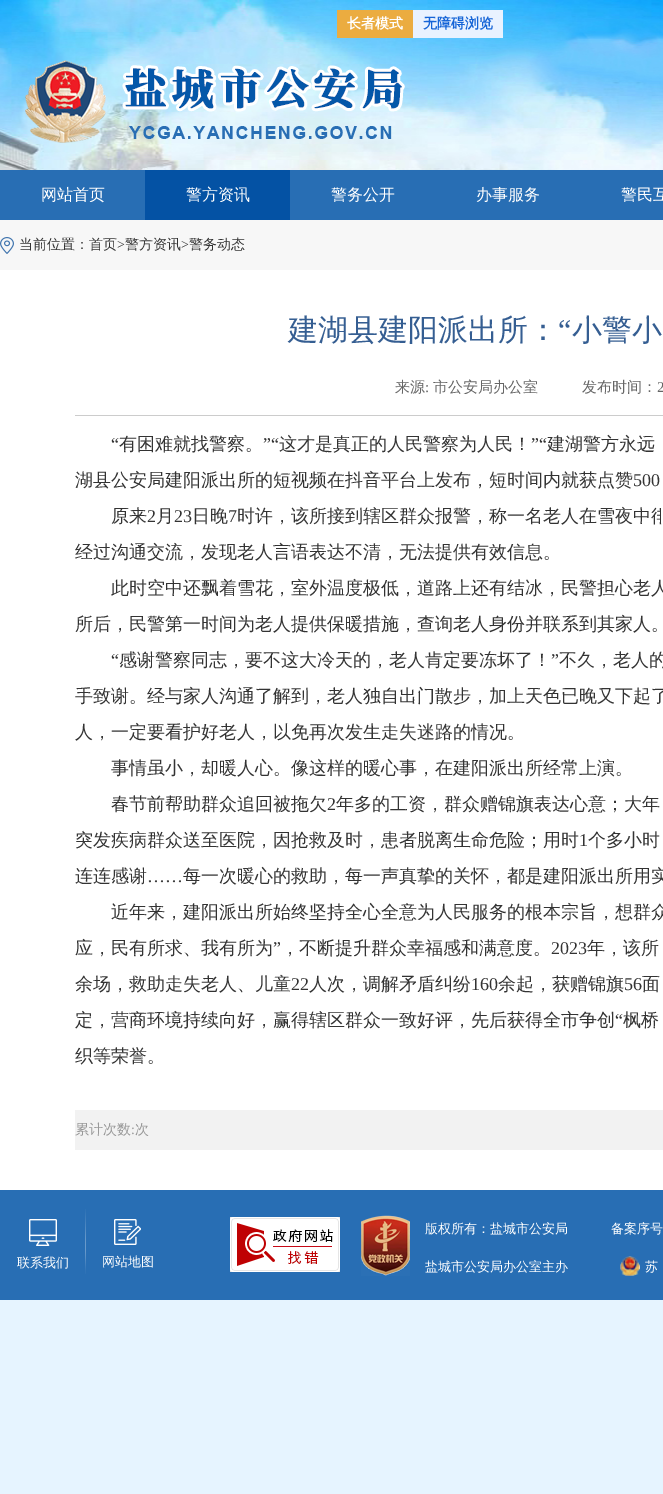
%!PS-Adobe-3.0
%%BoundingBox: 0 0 663 1494
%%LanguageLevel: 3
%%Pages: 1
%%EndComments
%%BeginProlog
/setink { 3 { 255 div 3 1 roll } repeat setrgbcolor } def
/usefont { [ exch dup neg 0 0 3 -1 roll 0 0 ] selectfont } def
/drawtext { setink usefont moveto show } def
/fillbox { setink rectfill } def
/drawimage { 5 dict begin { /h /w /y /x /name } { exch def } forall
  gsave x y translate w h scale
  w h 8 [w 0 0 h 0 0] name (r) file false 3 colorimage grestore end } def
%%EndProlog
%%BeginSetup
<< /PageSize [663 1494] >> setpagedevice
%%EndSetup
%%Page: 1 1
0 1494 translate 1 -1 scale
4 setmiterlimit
0 0 663 1494 230 244 255 fillbox
(assets/img1.rgb) 0 0 663 170 drawimage
337 10 76 28 235 172 64 fillbox
(长者模式) 347 28 /WenQuanYiZenHei-Bold 14 255 255 255 drawtext
413 10 90 28 233 242 255 fillbox
(无障碍浏览) 423 28 /WenQuanYiZenHei-Bold 14 21 100 215 drawtext
(assets/img2.rgb) 25 60 380 83 drawimage
0 170 663 50 40 110 180 fillbox
(网站首页) 41 200 /WenQuanYiZenHei-Medium 16 255 255 255 drawtext
145 170 145 50 4 82 164 fillbox
(警方资讯) 186 200 /WenQuanYiZenHei-Medium 16 255 255 255 drawtext
(警务公开) 331 200 /WenQuanYiZenHei-Medium 16 255 255 255 drawtext
(办事服务) 476 200 /WenQuanYiZenHei-Medium 16 255 255 255 drawtext
(警民互) 621 200 /WenQuanYiZenHei-Medium 16 255 255 255 drawtext
0 220 663 50 247 247 247 fillbox
(assets/img3.rgb) 0 237 14 17 drawimage
(当前位置：首页) 19 249 /WenQuanYiZenHei-Medium 14 51 51 51 drawtext
(>) 117 249 /LiberationSerif-Regular 14 51 51 51 drawtext
(警方资讯) 125 249 /WenQuanYiZenHei-Medium 14 51 51 51 drawtext
(>) 181 249 /LiberationSerif-Regular 14 51 51 51 drawtext
(警务动态) 189 249 /WenQuanYiZenHei-Medium 14 51 51 51 drawtext
0 270 663 920 255 255 255 fillbox
(建湖县建阳派出所：) 288 340 /WenQuanYiZenHei-Medium 30 53 94 146 drawtext
(“) 558 340 /LiberationSerif-Regular 30 53 94 146 drawtext
(小警小) 572 340 /WenQuanYiZenHei-Medium 30 53 94 146 drawtext
75 415 588 1 204 204 204 fillbox
(来源) 395 392 /WenQuanYiZenHei-Medium 15 102 102 102 drawtext
(:) 425 392 /LiberationSerif-Regular 15 102 102 102 drawtext
(市公安局办公室) 433 392 /WenQuanYiZenHei-Medium 15 102 102 102 drawtext
(发布时间：) 582 392 /WenQuanYiZenHei-Medium 15 102 102 102 drawtext
(2) 657 392 /LiberationSerif-Regular 15 102 102 102 drawtext
(“) 111 450 /LiberationSerif-Regular 18 51 51 51 drawtext
(有困难就找警察。) 119 450 /WenQuanYiZenHei-Medium 18 51 51 51 drawtext
(”“) 263 450 /LiberationSerif-Regular 18 51 51 51 drawtext
(这才是真正的人民警察为人民！) 279 450 /WenQuanYiZenHei-Medium 18 51 51 51 drawtext
(”“) 531 450 /LiberationSerif-Regular 18 51 51 51 drawtext
(建湖警方永远) 547 450 /WenQuanYiZenHei-Medium 18 51 51 51 drawtext
(湖县公安局建阳派出所的短视频在抖音平台上发布，短时间内就获点赞) 75 486 /WenQuanYiZenHei-Medium 18 51 51 51 drawtext
(500) 633 486 /LiberationSerif-Regular 18 51 51 51 drawtext
(原来) 111 522 /WenQuanYiZenHei-Medium 18 51 51 51 drawtext
(2) 147 522 /LiberationSerif-Regular 18 51 51 51 drawtext
(月) 156 522 /WenQuanYiZenHei-Medium 18 51 51 51 drawtext
(23) 174 522 /LiberationSerif-Regular 18 51 51 51 drawtext
(日晚) 192 522 /WenQuanYiZenHei-Medium 18 51 51 51 drawtext
(7) 228 522 /LiberationSerif-Regular 18 51 51 51 drawtext
(时许，该所接到辖区群众报警，称一名老人在雪夜中徘) 237 522 /WenQuanYiZenHei-Medium 18 51 51 51 drawtext
(经过沟通交流，发现老人言语表达不清，无法提供有效信息。) 75 558 /WenQuanYiZenHei-Medium 18 51 51 51 drawtext
(此时空中还飘着雪花，室外温度极低，道路上还有结冰，民警担心老人) 111 594 /WenQuanYiZenHei-Medium 18 51 51 51 drawtext
(所后，民警第一时间为老人提供保暖措施，查询老人身份并联系到其家人。) 75 630 /WenQuanYiZenHei-Medium 18 51 51 51 drawtext
(“) 111 666 /LiberationSerif-Regular 18 51 51 51 drawtext
(感谢警察同志，要不这大冷天的，老人肯定要冻坏了！) 119 666 /WenQuanYiZenHei-Medium 18 51 51 51 drawtext
(”) 551 666 /LiberationSerif-Regular 18 51 51 51 drawtext
(不久，老人的) 559 666 /WenQuanYiZenHei-Medium 18 51 51 51 drawtext
(手致谢。经与家人沟通了解到，老人独自出门散步，加上天色已晚又下起了) 75 702 /WenQuanYiZenHei-Medium 18 51 51 51 drawtext
(人，一定要看护好老人，以免再次发生走失迷路的情况。) 75 738 /WenQuanYiZenHei-Medium 18 51 51 51 drawtext
(事情虽小，却暖人心。像这样的暖心事，在建阳派出所经常上演。) 111 774 /WenQuanYiZenHei-Medium 18 51 51 51 drawtext
(春节前帮助群众追回被拖欠) 111 810 /WenQuanYiZenHei-Medium 18 51 51 51 drawtext
(2) 327 810 /LiberationSerif-Regular 18 51 51 51 drawtext
(年多的工资，群众赠锦旗表达心意；大年) 336 810 /WenQuanYiZenHei-Medium 18 51 51 51 drawtext
(突发疾病群众送至医院，因抢救及时，患者脱离生命危险；用时) 75 846 /WenQuanYiZenHei-Medium 18 51 51 51 drawtext
(1) 579 846 /LiberationSerif-Regular 18 51 51 51 drawtext
(个多小时) 588 846 /WenQuanYiZenHei-Medium 18 51 51 51 drawtext
(连连感谢) 75 882 /WenQuanYiZenHei-Medium 18 51 51 51 drawtext
(……) 147 882 /LiberationSerif-Regular 18 51 51 51 drawtext
(每一次暖心的救助，每一声真挚的关怀，都是建阳派出所用实) 183 882 /WenQuanYiZenHei-Medium 18 51 51 51 drawtext
(近年来，建阳派出所始终坚持全心全意为人民服务的根本宗旨，想群众) 111 918 /WenQuanYiZenHei-Medium 18 51 51 51 drawtext
(应，民有所求、我有所为) 75 954 /WenQuanYiZenHei-Medium 18 51 51 51 drawtext
(”) 273 954 /LiberationSerif-Regular 18 51 51 51 drawtext
(，不断提升群众幸福感和满意度。) 281 954 /WenQuanYiZenHei-Medium 18 51 51 51 drawtext
(2023) 551 954 /LiberationSerif-Regular 18 51 51 51 drawtext
(年，该所) 587 954 /WenQuanYiZenHei-Medium 18 51 51 51 drawtext
(余场，救助走失老人、儿童) 75 990 /WenQuanYiZenHei-Medium 18 51 51 51 drawtext
(22) 291 990 /LiberationSerif-Regular 18 51 51 51 drawtext
(人次，调解矛盾纠纷) 309 990 /WenQuanYiZenHei-Medium 18 51 51 51 drawtext
(160) 471 990 /LiberationSerif-Regular 18 51 51 51 drawtext
(余起，获赠锦旗) 498 990 /WenQuanYiZenHei-Medium 18 51 51 51 drawtext
(56) 624 990 /LiberationSerif-Regular 18 51 51 51 drawtext
(面) 642 990 /WenQuanYiZenHei-Medium 18 51 51 51 drawtext
(定，营商环境持续向好，赢得辖区群众一致好评，先后获得全市争创) 75 1026 /WenQuanYiZenHei-Medium 18 51 51 51 drawtext
(“) 615 1026 /LiberationSerif-Regular 18 51 51 51 drawtext
(枫桥) 623 1026 /WenQuanYiZenHei-Medium 18 51 51 51 drawtext
(织等荣誉。) 75 1062 /WenQuanYiZenHei-Medium 18 51 51 51 drawtext
75 1110 588 40 242 242 242 fillbox
(累计次数) 75 1134 /WenQuanYiZenHei-Medium 14 153 153 153 drawtext
(:) 131 1134 /LiberationSerif-Regular 14 153 153 153 drawtext
(次) 135 1134 /WenQuanYiZenHei-Medium 14 153 153 153 drawtext
0 1190 663 110 40 110 180 fillbox
(assets/img4.rgb) 29 1219 28 27 drawimage
(联系我们) 17 1267 /WenQuanYiZenHei-Medium 13 255 255 255 drawtext
(assets/img5.rgb) 85 1209 1 65 drawimage
(assets/img6.rgb) 114 1219 27 26 drawimage
(网站地图) 102 1266 /WenQuanYiZenHei-Medium 13 255 255 255 drawtext
(assets/img7.rgb) 230 1217 110 55 drawimage
(assets/img8.rgb) 361 1215 49 61 drawimage
(版权所有：盐城市公安局) 425 1233 /WenQuanYiZenHei-Medium 13 255 255 255 drawtext
(备案序号) 611 1233 /WenQuanYiZenHei-Medium 13 255 255 255 drawtext
(盐城市公安局办公室主办) 425 1271 /WenQuanYiZenHei-Medium 13 255 255 255 drawtext
(assets/img9.rgb) 620 1256 20 20 drawimage
(苏) 645 1271 /WenQuanYiZenHei-Medium 13 255 255 255 drawtext
showpage
%%EOF
